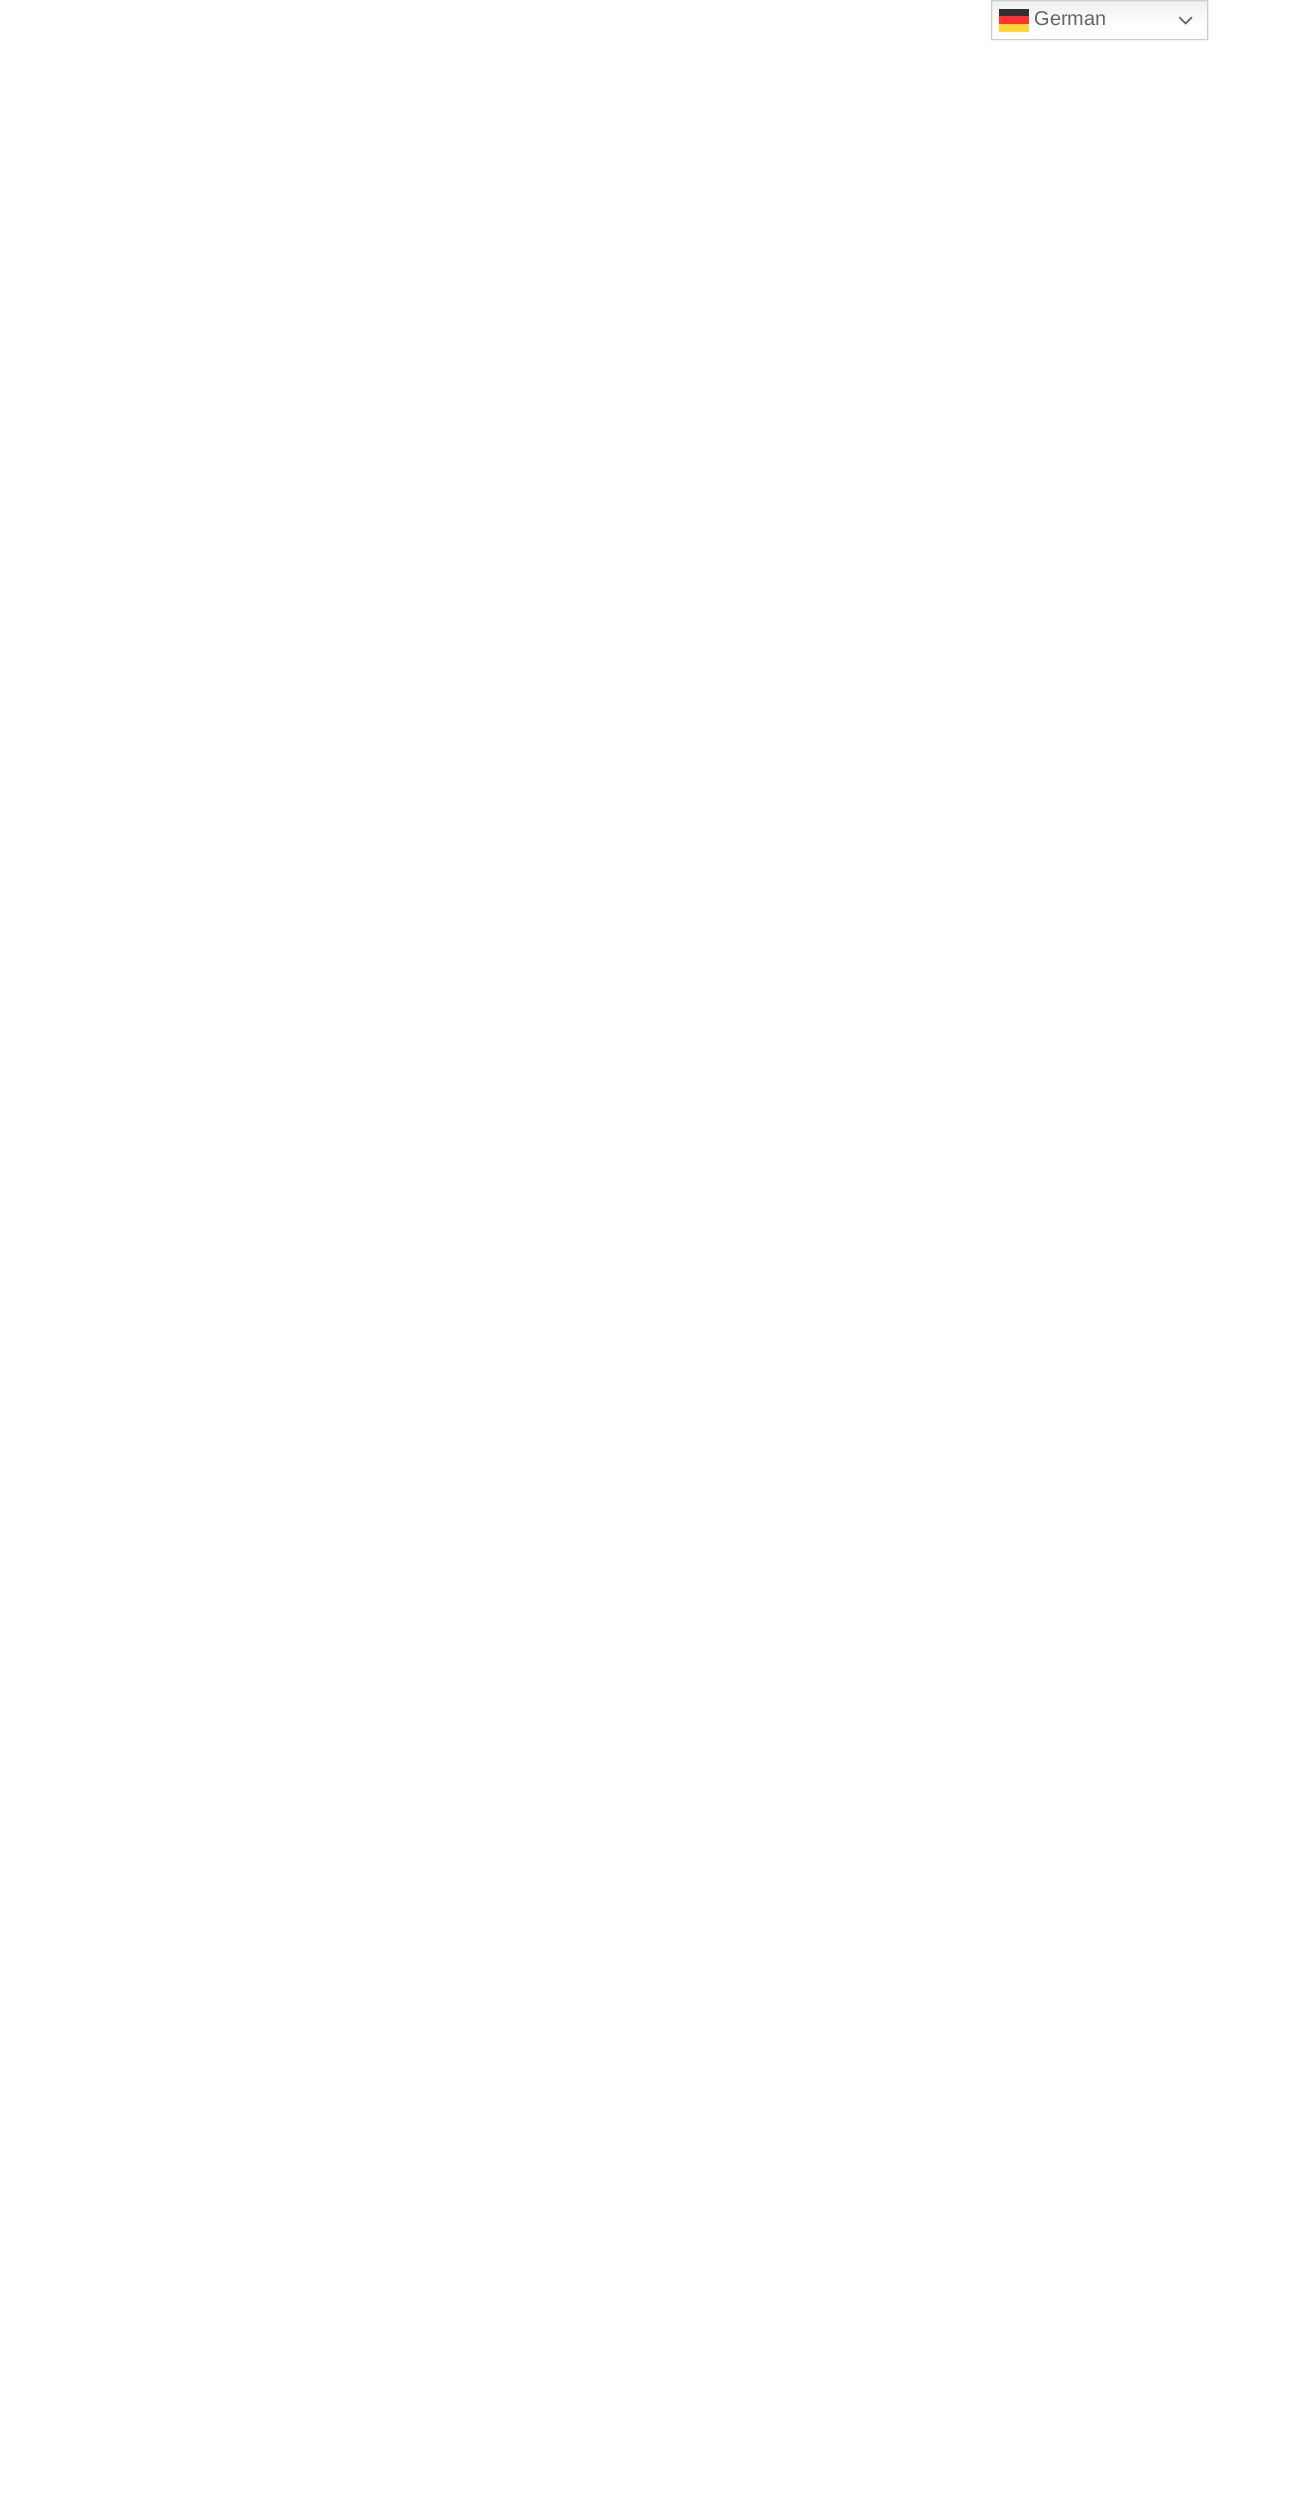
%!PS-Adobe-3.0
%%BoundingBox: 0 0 1312 2504
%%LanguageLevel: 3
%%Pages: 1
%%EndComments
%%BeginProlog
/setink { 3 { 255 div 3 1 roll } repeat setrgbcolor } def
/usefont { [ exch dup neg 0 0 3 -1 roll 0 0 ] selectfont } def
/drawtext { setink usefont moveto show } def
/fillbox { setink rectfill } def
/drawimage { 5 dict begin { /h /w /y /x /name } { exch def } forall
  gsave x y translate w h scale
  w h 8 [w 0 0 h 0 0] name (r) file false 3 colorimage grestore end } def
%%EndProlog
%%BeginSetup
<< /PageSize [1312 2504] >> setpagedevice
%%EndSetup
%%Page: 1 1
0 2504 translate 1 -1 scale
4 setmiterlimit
0 0 1312 2504 255 255 255 fillbox
gsave 992 1 moveto 1207 1 lineto 1207 24 lineto 992 24 lineto closepath clip newpath
<< /ShadingType 2 /ColorSpace /DeviceRGB /Coords [1099 0 1099 40] /Extend [true true] /Function << /FunctionType 3 /Domain [0 1] /Functions [<< /FunctionType 2 /Domain [0 1] /C0 [0.937 0.937 0.937] /C1 [1 1 1] /N 1 >> << /FunctionType 2 /Domain [0 1] /C0 [1 1 1] /C1 [1 1 1] /N 1 >>] /Bounds [0.7] /Encode [0 1 0 1] >> >> shfill grestore
gsave 999 16 moveto 1029 16 lineto 1029 24 lineto 999 24 lineto closepath clip newpath
<< /ShadingType 2 /ColorSpace /DeviceRGB /Coords [1099 0 1099 40] /Extend [true true] /Function << /FunctionType 3 /Domain [0 1] /Functions [<< /FunctionType 2 /Domain [0 1] /C0 [0.988 0.188 0.188] /C1 [1 0.2 0.2] /N 1 >> << /FunctionType 2 /Domain [0 1] /C0 [1 0.2 0.2] /C1 [1 0.2 0.2] /N 1 >>] /Bounds [0.7] /Encode [0 1 0 1] >> >> shfill grestore
gsave 999 9 moveto 1029 9 lineto 1029 16 lineto 999 16 lineto closepath clip newpath
<< /ShadingType 2 /ColorSpace /DeviceRGB /Coords [1099 0 1099 40] /Extend [true true] /Function << /FunctionType 3 /Domain [0 1] /Functions [<< /FunctionType 2 /Domain [0 1] /C0 [0.188 0.188 0.188] /C1 [0.2 0.2 0.2] /N 1 >> << /FunctionType 2 /Domain [0 1] /C0 [0.2 0.2 0.2] /C1 [0.2 0.2 0.2] /N 1 >>] /Bounds [0.7] /Encode [0 1 0 1] >> >> shfill grestore
204 204 204 setink
991.5 0.5 216 39 rectstroke
(German) 1034 25 /LiberationSans-Regular 20 102 102 102 drawtext
(assets/img1.rgb) 1179 16 14 9 drawimage
999 24 30 8 255 214 51 fillbox
showpage
%%EOF
